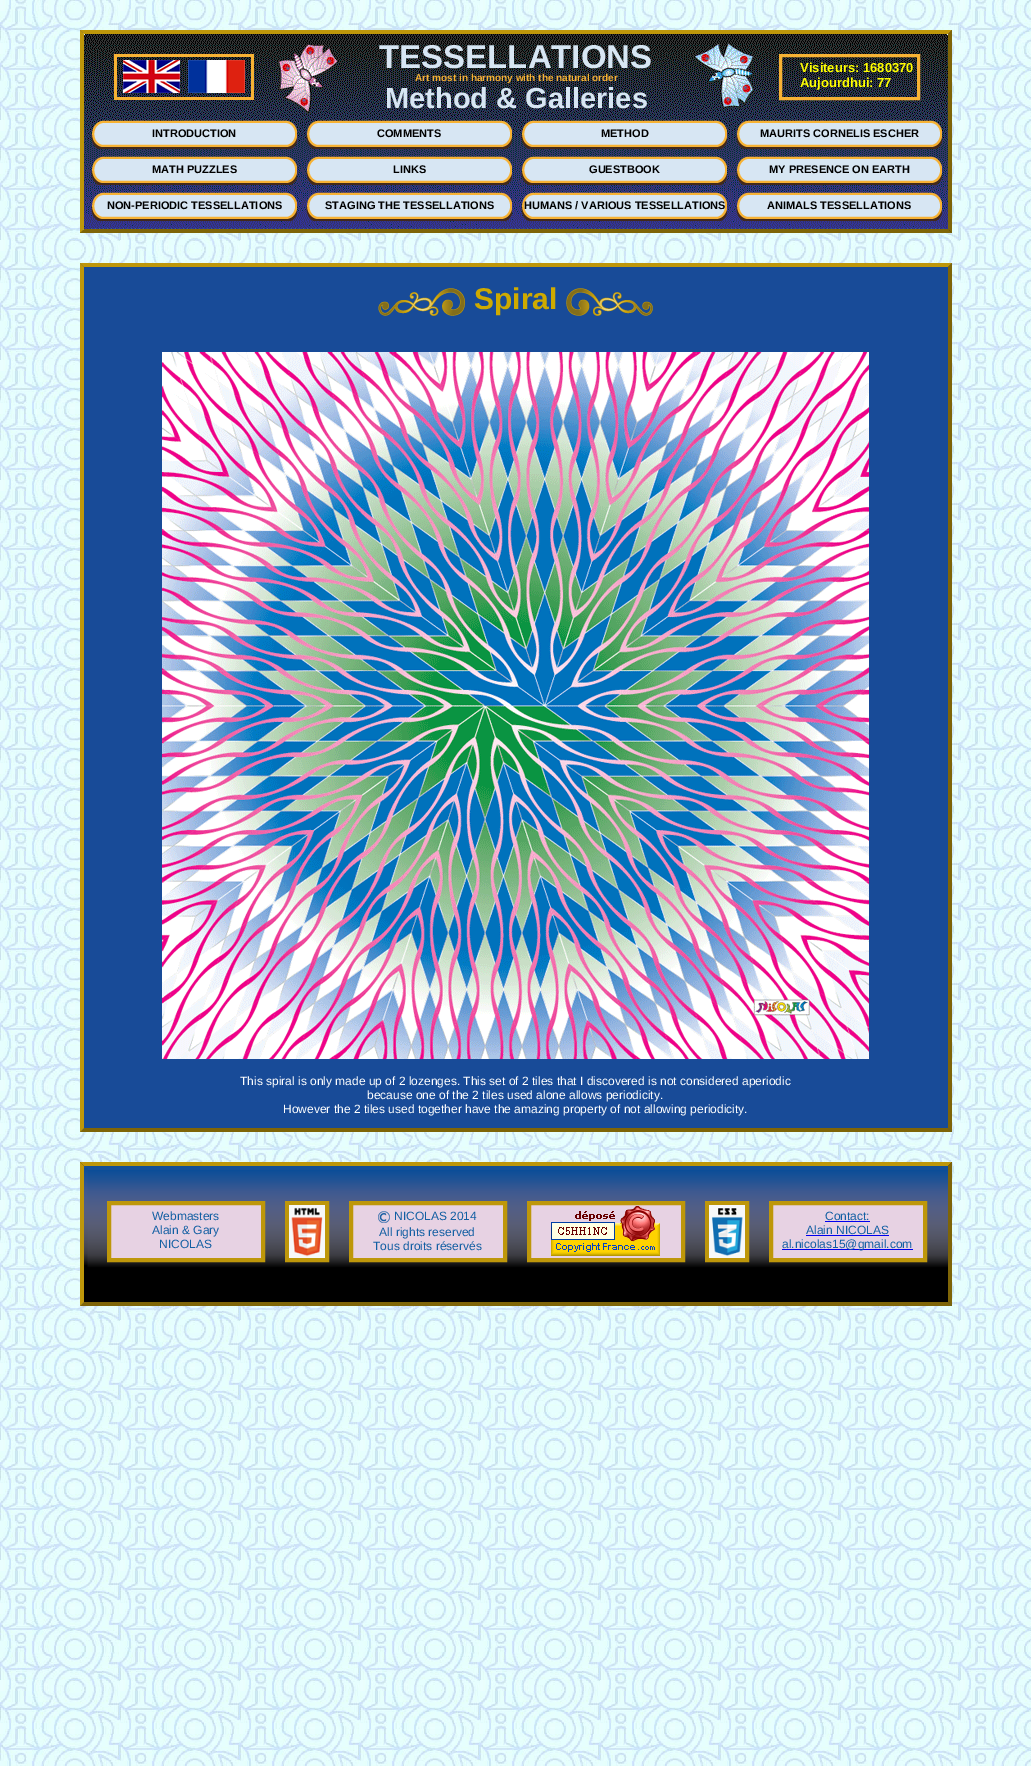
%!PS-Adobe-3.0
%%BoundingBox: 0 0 1031 1766
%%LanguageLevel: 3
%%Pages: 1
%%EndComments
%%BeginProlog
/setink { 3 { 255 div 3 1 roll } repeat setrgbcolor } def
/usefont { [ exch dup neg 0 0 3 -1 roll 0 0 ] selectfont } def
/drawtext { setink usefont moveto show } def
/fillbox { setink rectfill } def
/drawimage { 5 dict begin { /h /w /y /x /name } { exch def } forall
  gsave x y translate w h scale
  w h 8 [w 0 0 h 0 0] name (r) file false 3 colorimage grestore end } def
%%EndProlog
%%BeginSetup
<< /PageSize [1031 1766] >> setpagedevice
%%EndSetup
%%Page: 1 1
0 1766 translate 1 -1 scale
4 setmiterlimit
0 0 1031 1766 255 255 255 fillbox
(assets/img1.rgb) 0 0 1031 1766 drawimage
(assets/img2.rgb) 80 30 872 203 drawimage
190 151 10 setink
80 30 moveto 952 30 lineto 948 34 lineto 84 34 lineto closepath fill
127 101 7 setink
952 30 moveto 952 233 lineto 948 229 lineto 948 34 lineto closepath fill
952 233 moveto 80 233 lineto 84 229 lineto 948 229 lineto closepath fill
190 151 10 setink
80 233 moveto 80 30 lineto 84 34 lineto 84 229 lineto closepath fill
(assets/img3.rgb) 123 60 57 33 drawimage
114 54 140 3 247 178 52 fillbox
114 97 70 3 247 178 52 fillbox
114 54 3 46 247 178 52 fillbox
(TESSELLATIONS) 379 68 /LiberationSans-Bold 33 215 230 243 drawtext
(assets/img4.rgb) 188 60 57 33 drawimage
251 54 3 46 247 178 52 fillbox
184 97 70 3 247 178 52 fillbox
(Art most in harmony with the natural order) 415 81 /LiberationSans-Bold 10 247 178 52 drawtext
3 setlinewidth
780.5 55.5 138 43 rectstroke
(Visiteurs: 1680370) 800 72 /LiberationSans-Bold 13 255 255 0 drawtext
(Aujourdhui: 77) 800 87 /LiberationSans-Bold 13 255 255 0 drawtext
(Method & Galleries) 385 108 /LiberationSans-Bold 29 215 230 243 drawtext
(assets/img5.rgb) 91 120 206 29 drawimage
(INTRODUCTION) 152 137 /LiberationSans-Bold 11 0 0 0 drawtext
(assets/img6.rgb) 306 120 206 29 drawimage
(COMMENTS) 377 137 /LiberationSans-Bold 11 0 0 0 drawtext
(assets/img7.rgb) 521 120 206 29 drawimage
(METHOD) 601 137 /LiberationSans-Bold 11 0 0 0 drawtext
(assets/img8.rgb) 736 120 206 29 drawimage
(MAURITS CORNELIS ESCHER) 760 137 /LiberationSans-Bold 11 0 0 0 drawtext
(assets/img9.rgb) 91 156 206 29 drawimage
(MATH PUZZLES) 152 173 /LiberationSans-Bold 11 0 0 0 drawtext
(assets/img10.rgb) 306 156 206 29 drawimage
(LINKS) 393 173 /LiberationSans-Bold 11 0 0 0 drawtext
(assets/img11.rgb) 521 156 206 29 drawimage
(GUESTBOOK) 589 173 /LiberationSans-Bold 11 0 0 0 drawtext
(assets/img12.rgb) 736 156 206 29 drawimage
(MY PRESENCE ON EARTH) 769 173 /LiberationSans-Bold 11 0 0 0 drawtext
(assets/img13.rgb) 91 192 206 29 drawimage
(NON-PERIODIC TESSELLATIONS) 107 209 /LiberationSans-Bold 11 0 0 0 drawtext
(assets/img14.rgb) 306 192 206 29 drawimage
(STAGING THE TESSELLATIONS) 325 209 /LiberationSans-Bold 11 0 0 0 drawtext
(assets/img15.rgb) 521 192 206 29 drawimage
(HUMANS / VARIOUS TESSELLATIONS) 524 209 /LiberationSans-Bold 11 0 0 0 drawtext
(assets/img16.rgb) 736 192 206 29 drawimage
(ANIMALS TESSELLATIONS) 767 209 /LiberationSans-Bold 11 0 0 0 drawtext
80 263 872 869 24 75 152 fillbox
190 151 10 setink
80 263 moveto 952 263 lineto 948 267 lineto 84 267 lineto closepath fill
127 101 7 setink
952 263 moveto 952 1132 lineto 948 1128 lineto 948 267 lineto closepath fill
952 1132 moveto 80 1132 lineto 84 1128 lineto 948 1128 lineto closepath fill
190 151 10 setink
80 1132 moveto 80 263 lineto 84 267 lineto 84 1128 lineto closepath fill
(assets/img17.rgb) 378 288 87 28 drawimage
(Spiral) 474 309 /LiberationSans-Bold 30 206 170 0 drawtext
(assets/img18.rgb) 566 288 87 28 drawimage
(assets/img19.rgb) 162 352 707 707 drawimage
(This spiral is only made up of 2 lozenges. This set of 2 tiles that I discovered is not considered aperiodic) 240 1085 /LiberationSans-Regular 12 255 255 255 drawtext
(because one of the 2 tiles used alone allows periodicity.) 367 1099 /LiberationSans-Regular 12 255 255 255 drawtext
(However the 2 tiles used together have the amazing property of not allowing periodicity.) 283 1113 /LiberationSans-Regular 12 255 255 255 drawtext
(assets/img20.rgb) 80 1162 872 144 drawimage
190 151 10 setink
80 1162 moveto 952 1162 lineto 948 1166 lineto 84 1166 lineto closepath fill
127 101 7 setink
952 1162 moveto 952 1306 lineto 948 1302 lineto 948 1166 lineto closepath fill
952 1306 moveto 80 1306 lineto 84 1302 lineto 948 1302 lineto closepath fill
190 151 10 setink
80 1306 moveto 80 1162 lineto 84 1166 lineto 84 1302 lineto closepath fill
231 210 227 setink
109 1203 moveto 263 1203 lineto 263 1260 lineto 109 1260 lineto closepath gsave fill grestore
190 151 10 setink
4 setlinewidth
stroke
(Webmasters) 152 1220 /LiberationSans-Regular 12 18 95 163 drawtext
(Alain & Gary) 152 1234 /LiberationSans-Regular 12 18 95 163 drawtext
(NICOLAS) 159 1248 /LiberationSans-Regular 12 18 95 163 drawtext
190 151 10 setink
287 1203 40 57 rectstroke
(assets/img21.rgb) 289 1205 36 53 drawimage
231 210 227 setink
351 1203 moveto 505 1203 lineto 505 1260 lineto 351 1260 lineto closepath gsave fill grestore
190 151 10 setink
stroke
(assets/img22.rgb) 378 1211 12 12 drawimage
(NICOLAS 2014) 394 1220 /LiberationSans-Regular 12 18 95 163 drawtext
(All rights reserved) 379 1236 /LiberationSans-Regular 12 18 95 163 drawtext
(Tous droits réservés) 373 1250 /LiberationSans-Regular 12 18 95 163 drawtext
231 210 227 setink
529 1203 moveto 683 1203 lineto 683 1260 lineto 529 1260 lineto closepath gsave fill grestore
190 151 10 setink
stroke
(assets/img23.rgb) 551 1206 109 50 drawimage
707 1203 40 57 rectstroke
(assets/img24.rgb) 709 1205 36 53 drawimage
231 210 227 setink
771 1203 moveto 925 1203 lineto 925 1260 lineto 771 1260 lineto closepath gsave fill grestore
190 151 10 setink
stroke
(Contact:) 825 1220 /LiberationSans-Regular 12 18 95 163 drawtext
825 1221 45 1 0 0 238 fillbox
(Alain NICOLAS) 806 1234 /LiberationSans-Regular 12 18 95 163 drawtext
806 1235 83 1 0 0 238 fillbox
782 1249 131 1 0 0 238 fillbox
(al.nicolas15@gmail.com) 782 1248 /LiberationSans-Regular 12 18 95 163 drawtext
showpage
%%EOF
